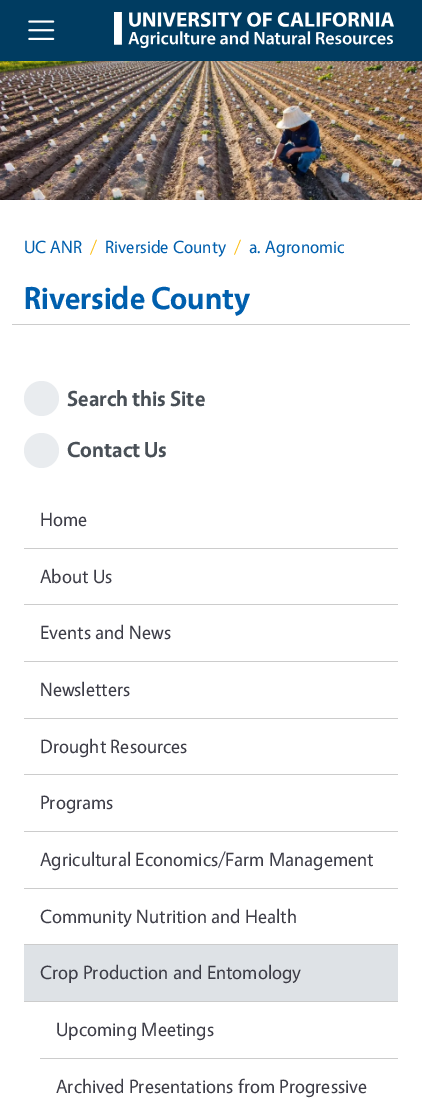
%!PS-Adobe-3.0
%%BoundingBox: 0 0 422 1106
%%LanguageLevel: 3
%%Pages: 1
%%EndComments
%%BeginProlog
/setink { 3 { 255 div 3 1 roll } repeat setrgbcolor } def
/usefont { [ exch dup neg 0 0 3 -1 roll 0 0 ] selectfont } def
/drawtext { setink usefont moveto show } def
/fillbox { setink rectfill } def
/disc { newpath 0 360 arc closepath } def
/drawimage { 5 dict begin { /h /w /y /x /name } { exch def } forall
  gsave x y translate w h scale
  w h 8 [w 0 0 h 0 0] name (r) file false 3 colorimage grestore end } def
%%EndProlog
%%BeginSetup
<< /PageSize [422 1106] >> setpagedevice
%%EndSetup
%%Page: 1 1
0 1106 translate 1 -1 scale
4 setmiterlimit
0 0 422 1106 255 255 255 fillbox
0 0 422 61 0 60 97 fillbox
(assets/img1.rgb) 28 20 27 20 drawimage
(assets/img2.rgb) 114 12 280 36 drawimage
(assets/img3.rgb) 0 61 422 139 drawimage
(UC ANR) 24 253 /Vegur-Regular 17.75 0 95 174 drawtext
(/) 90 253 /Vegur-Regular 17.75 253 189 16 drawtext
(Riverside County) 105 253 /Vegur-Regular 17.75 0 95 174 drawtext
(/) 234 253 /Vegur-Regular 17.75 253 189 16 drawtext
(a. Agronomic) 249 253 /Vegur-Regular 17.75 0 95 174 drawtext
12 324 398 1 204 204 204 fillbox
(Riverside County) 24 309 /Vegur-Bold 31.75 0 95 174 drawtext
233 236 239 setink
41.5 398.5 17.5 disc fill
(Search this Site) 67 406 /Vegur-Bold 21.75 73 80 87 drawtext
233 236 239 setink
41.5 450.5 17.5 disc fill
(Contact Us) 67 457 /Vegur-Bold 21.75 73 80 87 drawtext
24 548 374 1 204 204 204 fillbox
(Home) 40 526 /Vegur-Regular 19.25 61 61 71 drawtext
24 604 374 1 204 204 204 fillbox
(About Us) 40 583 /Vegur-Regular 19.25 61 61 71 drawtext
24 661 374 1 204 204 204 fillbox
(Events and News) 40 639 /Vegur-Regular 19.25 61 61 71 drawtext
24 718 374 1 204 204 204 fillbox
(Newsletters) 40 696 /Vegur-Regular 19.25 61 61 71 drawtext
24 774 374 1 204 204 204 fillbox
(Drought Resources) 40 753 /Vegur-Regular 19.25 61 61 71 drawtext
24 831 374 1 204 204 204 fillbox
(Programs) 40 809 /Vegur-Regular 19.25 61 61 71 drawtext
24 888 374 1 204 204 204 fillbox
(Agricultural Economics/Farm Management) 40 866 /Vegur-Regular 19.25 61 61 71 drawtext
24 944 374 1 204 204 204 fillbox
(Community Nutrition and Health) 40 923 /Vegur-Regular 19.25 61 61 71 drawtext
24 945 374 56 222 226 230 fillbox
24 1001 374 1 204 204 204 fillbox
(Crop Production and Entomology) 40 979 /Vegur-Regular 19.25 61 61 71 drawtext
40 1058 358 1 204 204 204 fillbox
(Upcoming Meetings) 56 1036 /Vegur-Regular 19.25 61 61 71 drawtext
(Archived Presentations from Progressive) 56 1093 /Vegur-Regular 19.25 61 61 71 drawtext
showpage
%%EOF
